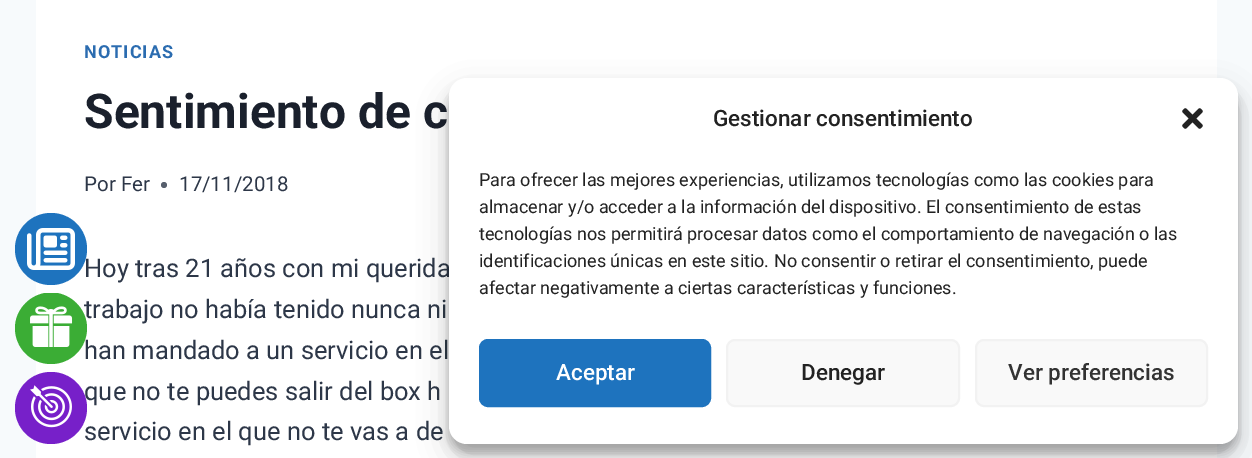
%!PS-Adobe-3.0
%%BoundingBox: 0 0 1252 458
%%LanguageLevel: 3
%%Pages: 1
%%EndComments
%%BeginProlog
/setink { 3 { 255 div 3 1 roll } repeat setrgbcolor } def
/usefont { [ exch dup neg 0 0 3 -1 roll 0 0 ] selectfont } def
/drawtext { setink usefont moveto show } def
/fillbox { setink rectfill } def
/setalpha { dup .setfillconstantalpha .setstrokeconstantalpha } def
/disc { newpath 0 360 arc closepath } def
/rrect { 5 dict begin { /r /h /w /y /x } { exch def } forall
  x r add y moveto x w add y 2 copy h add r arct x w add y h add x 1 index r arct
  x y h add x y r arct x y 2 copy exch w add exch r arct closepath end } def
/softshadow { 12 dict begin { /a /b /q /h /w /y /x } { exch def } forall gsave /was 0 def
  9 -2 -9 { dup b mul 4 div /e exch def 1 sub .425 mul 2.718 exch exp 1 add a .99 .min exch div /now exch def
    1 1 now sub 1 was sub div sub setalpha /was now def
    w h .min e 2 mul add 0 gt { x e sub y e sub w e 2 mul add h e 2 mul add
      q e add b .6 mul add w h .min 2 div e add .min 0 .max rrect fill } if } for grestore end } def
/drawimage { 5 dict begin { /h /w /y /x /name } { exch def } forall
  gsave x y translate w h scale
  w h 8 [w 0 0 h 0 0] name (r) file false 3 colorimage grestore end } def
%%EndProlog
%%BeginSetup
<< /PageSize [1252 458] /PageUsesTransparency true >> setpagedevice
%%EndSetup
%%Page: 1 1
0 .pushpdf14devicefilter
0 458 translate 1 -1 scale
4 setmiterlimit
0 0 1252 458 247 250 252 fillbox
36 0 1181 458 255 255 255 fillbox
(Hoy tras 21 años con mi querida) 84 277 /Roboto-Regular 25.5 45 55 72 drawtext
30 115 190 setink
51 213 moveto 71 213 87 229 87 249 curveto 87 269 71 285 51 285 curveto 31 285 15 269 15 249 curveto 15 229 31 213 51 213 curveto closepath fill
(assets/img1.rgb) 27 228 48 42 drawimage
(trabajo no había tenido nunca ni) 84 318 /Roboto-Regular 25.5 45 55 72 drawtext
(han mandado a un servicio en el) 84 359 /Roboto-Regular 25.5 45 55 72 drawtext
59 173 53 setink
57 293 moveto 74 296 87 311 87 328 curveto 87 348 71 364 51 364 curveto 31 364 15 348 15 328 curveto 15 311 28 296 45 293 curveto closepath fill
(assets/img2.rgb) 30 306 43 41 drawimage
(que no te puedes salir del box h) 84 400 /Roboto-Regular 25.5 45 55 72 drawtext
(servicio en el que no te vas a de) 84 440 /Roboto-Regular 25.5 45 55 72 drawtext
119 32 201 setink
51 372 moveto 71 372 87 388 87 408 curveto 87 428 71 444 51 444 curveto 31 444 15 428 15 408 curveto 15 388 31 372 51 372 curveto closepath fill
(assets/img3.rgb) 30 385 42 43 drawimage
/Roboto-Bold 18 usefont
43 108 176 setink
84 58 moveto 1 0 (NOTICIAS) ashow
(Sentimiento de c) 84 128 /Roboto-Bold 48 26 32 44 drawtext
(Por Fer) 84 191 /Roboto-Regular 20.5 45 55 72 drawtext
87 95 109 setink
164 185 3 disc fill
(17/11/2018) 179 191 /Roboto-Regular 20.5 45 55 72 drawtext
0 0 0 setink
449 87 789 366 18 4.5 0.23 softshadow
449 93 789 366 18 15 0.19 softshadow
255 255 255 setink
449 78 789 366 18 rrect fill
(Gestionar consentimiento) 713 126 /Roboto-Medium 22.5 34 34 34 drawtext
(assets/img4.rgb) 1182 108 21 21 drawimage
(Para ofrecer las mejores experiencias, utilizamos tecnologías como las cookies para) 479 186 /Roboto-Regular 18 34 34 34 drawtext
(almacenar y/o acceder a la información del dispositivo. El consentimiento de estas) 479 213 /Roboto-Regular 18 34 34 34 drawtext
(tecnologías nos permitirá procesar datos como el comportamiento de navegación o las) 479 240 /Roboto-Regular 18 34 34 34 drawtext
(identificaciones únicas en este sitio. No consentir o retirar el consentimiento, puede) 479 267 /Roboto-Regular 18 34 34 34 drawtext
(afectar negativamente a ciertas características y funciones.) 479 294 /Roboto-Regular 18 34 34 34 drawtext
30 115 190 setink
480 340 230 66 8 rrect gsave fill grestore
2 setlinewidth
stroke
(Aceptar) 556 380 /Roboto-Medium 22.5 255 255 255 drawtext
249 249 249 setink
727 340 232 66 8 rrect gsave fill grestore
242 242 242 setink
stroke
(Denegar) 801 380 /Roboto-Medium 22.5 34 34 34 drawtext
249 249 249 setink
976 340 231 66 8 rrect gsave fill grestore
242 242 242 setink
stroke
(Ver preferencias) 1008 380 /Roboto-Medium 22.5 51 51 51 drawtext
.poppdf14devicefilter showpage
%%EOF
